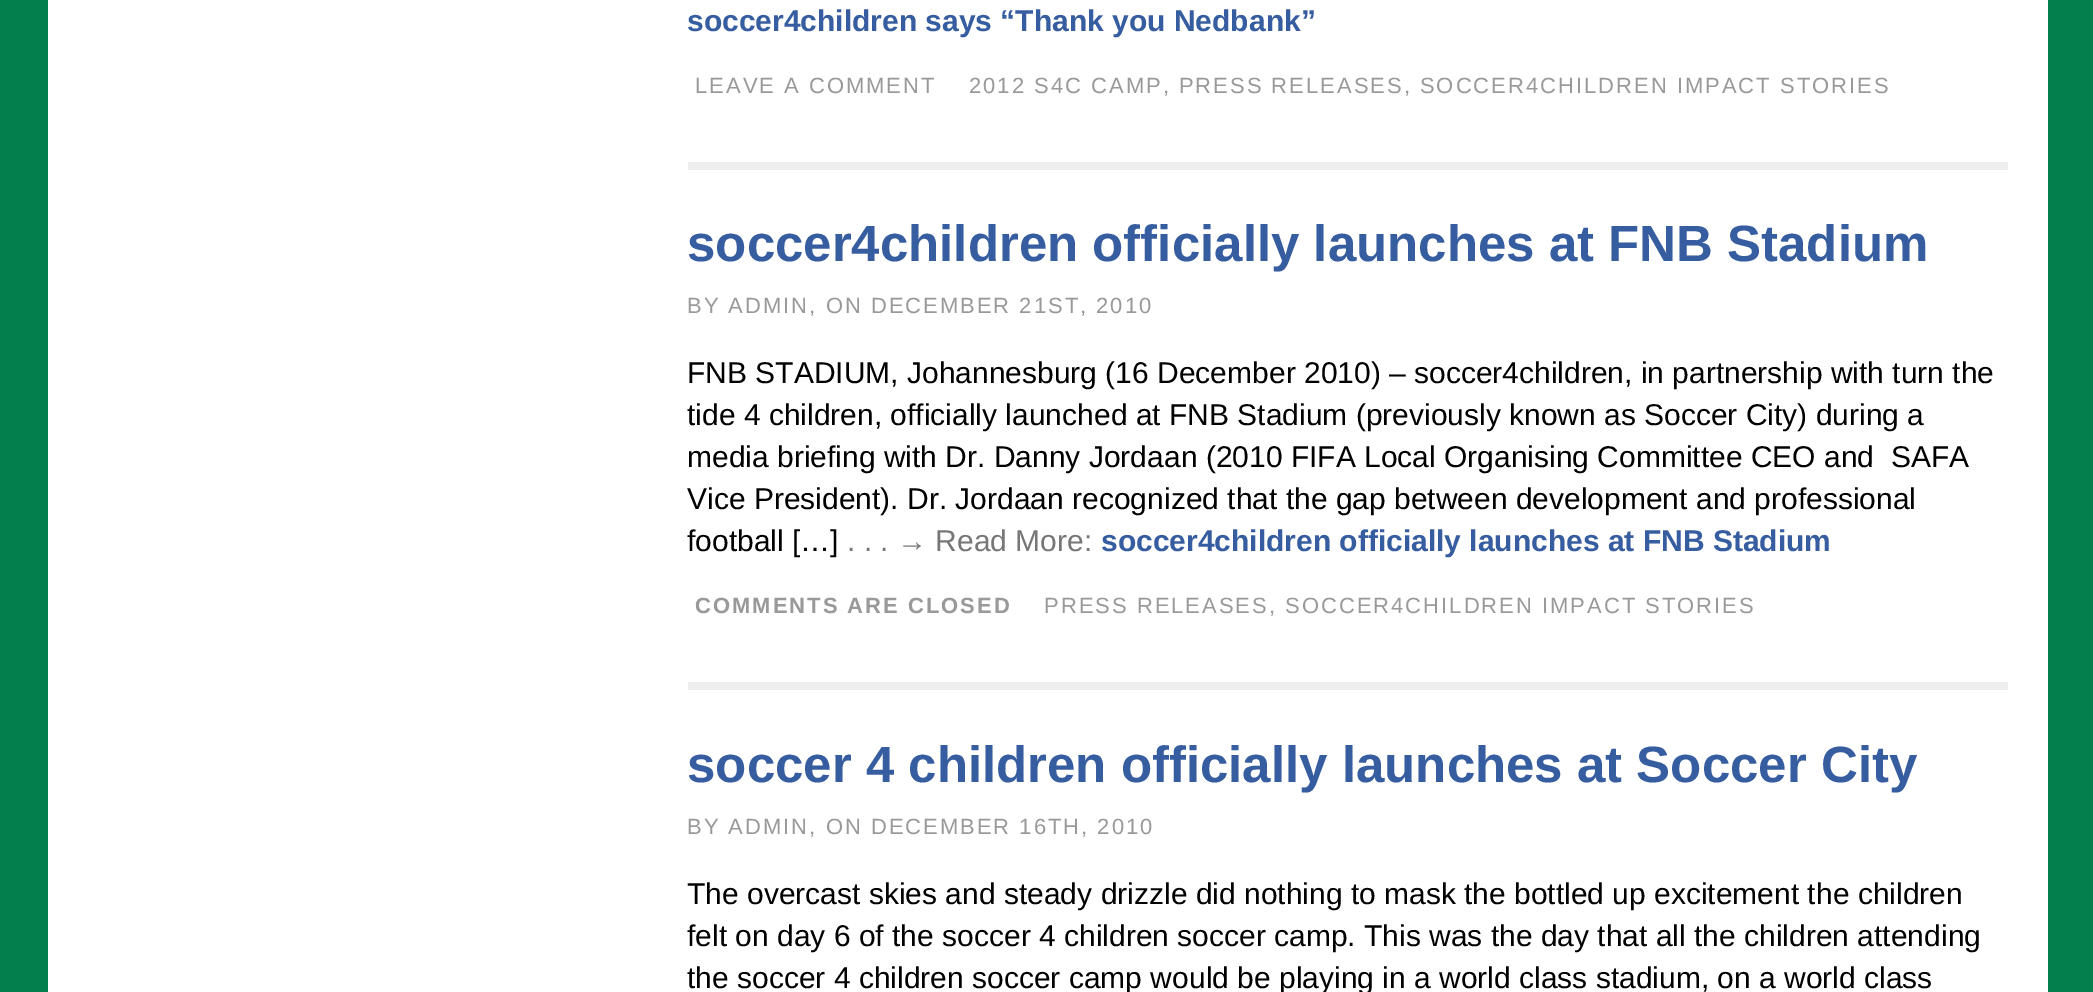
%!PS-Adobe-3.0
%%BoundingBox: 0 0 2093 992
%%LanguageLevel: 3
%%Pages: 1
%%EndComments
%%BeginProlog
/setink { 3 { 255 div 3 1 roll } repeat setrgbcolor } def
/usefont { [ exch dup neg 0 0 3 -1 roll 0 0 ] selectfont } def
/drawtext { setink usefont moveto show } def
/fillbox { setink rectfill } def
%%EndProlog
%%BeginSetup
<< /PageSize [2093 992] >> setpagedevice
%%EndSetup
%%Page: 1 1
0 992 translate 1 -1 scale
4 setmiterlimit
0 0 2093 992 1 128 76 fillbox
48 0 2000 992 255 255 255 fillbox
(soccer4children says “Thank you Nedbank”) 687 31 /LiberationSans-Bold 30 54 93 160 drawtext
/LiberationSans-Regular 22 usefont
153 153 153 setink
695 93 moveto 2 0 (LEAVE A COMMENT) ashow
969 93 moveto 2 0 (2012 S4C CAMP, PRESS RELEASES, SOCCER4CHILDREN IMPACT STORIES) ashow
688 162 1320 8 238 238 238 fillbox
(soccer4children officially launches at FNB Stadium) 687 261 /LiberationSans-Bold 51 54 93 160 drawtext
/LiberationSans-Regular 22 usefont
153 153 153 setink
687 313 moveto 2 0 (BY ADMIN, ON DECEMBER 21ST, 2010) ashow
(FNB STADIUM, Johannesburg \(16 December 2010\) – soccer4children, in partnership with turn the) 687 383 /LiberationSans-Regular 30 0 0 0 drawtext
(tide 4 children, officially launched at FNB Stadium \(previously known as Soccer City\) during a) 687 425 /LiberationSans-Regular 30 0 0 0 drawtext
(media briefing with Dr. Danny Jordaan \(2010 FIFA Local Organising Committee CEO and  SAFA) 687 467 /LiberationSans-Regular 30 0 0 0 drawtext
(Vice President\). Dr. Jordaan recognized that the gap between development and professional) 687 509 /LiberationSans-Regular 30 0 0 0 drawtext
(football […]) 687 551 /LiberationSans-Regular 30 0 0 0 drawtext
(. . . → Read More:) 847 551 /LiberationSans-Regular 30 119 119 119 drawtext
(soccer4children officially launches at FNB Stadium) 1101 551 /LiberationSans-Bold 30 54 93 160 drawtext
/LiberationSans-Bold 22 usefont
153 153 153 setink
695 613 moveto 2 0 (COMMENTS ARE CLOSED) ashow
/LiberationSans-Regular 22 usefont
1044 613 moveto 2 0 (PRESS RELEASES, SOCCER4CHILDREN IMPACT STORIES) ashow
688 682 1320 8 238 238 238 fillbox
(soccer 4 children officially launches at Soccer City) 687 782 /LiberationSans-Bold 51 54 93 160 drawtext
/LiberationSans-Regular 22 usefont
153 153 153 setink
687 834 moveto 2 0 (BY ADMIN, ON DECEMBER 16TH, 2010) ashow
(The overcast skies and steady drizzle did nothing to mask the bottled up excitement the children) 687 904 /LiberationSans-Regular 30 0 0 0 drawtext
(felt on day 6 of the soccer 4 children soccer camp. This was the day that all the children attending) 687 946 /LiberationSans-Regular 30 0 0 0 drawtext
(the soccer 4 children soccer camp would be playing in a world class stadium, on a world class) 687 988 /LiberationSans-Regular 30 0 0 0 drawtext
showpage
%%EOF
